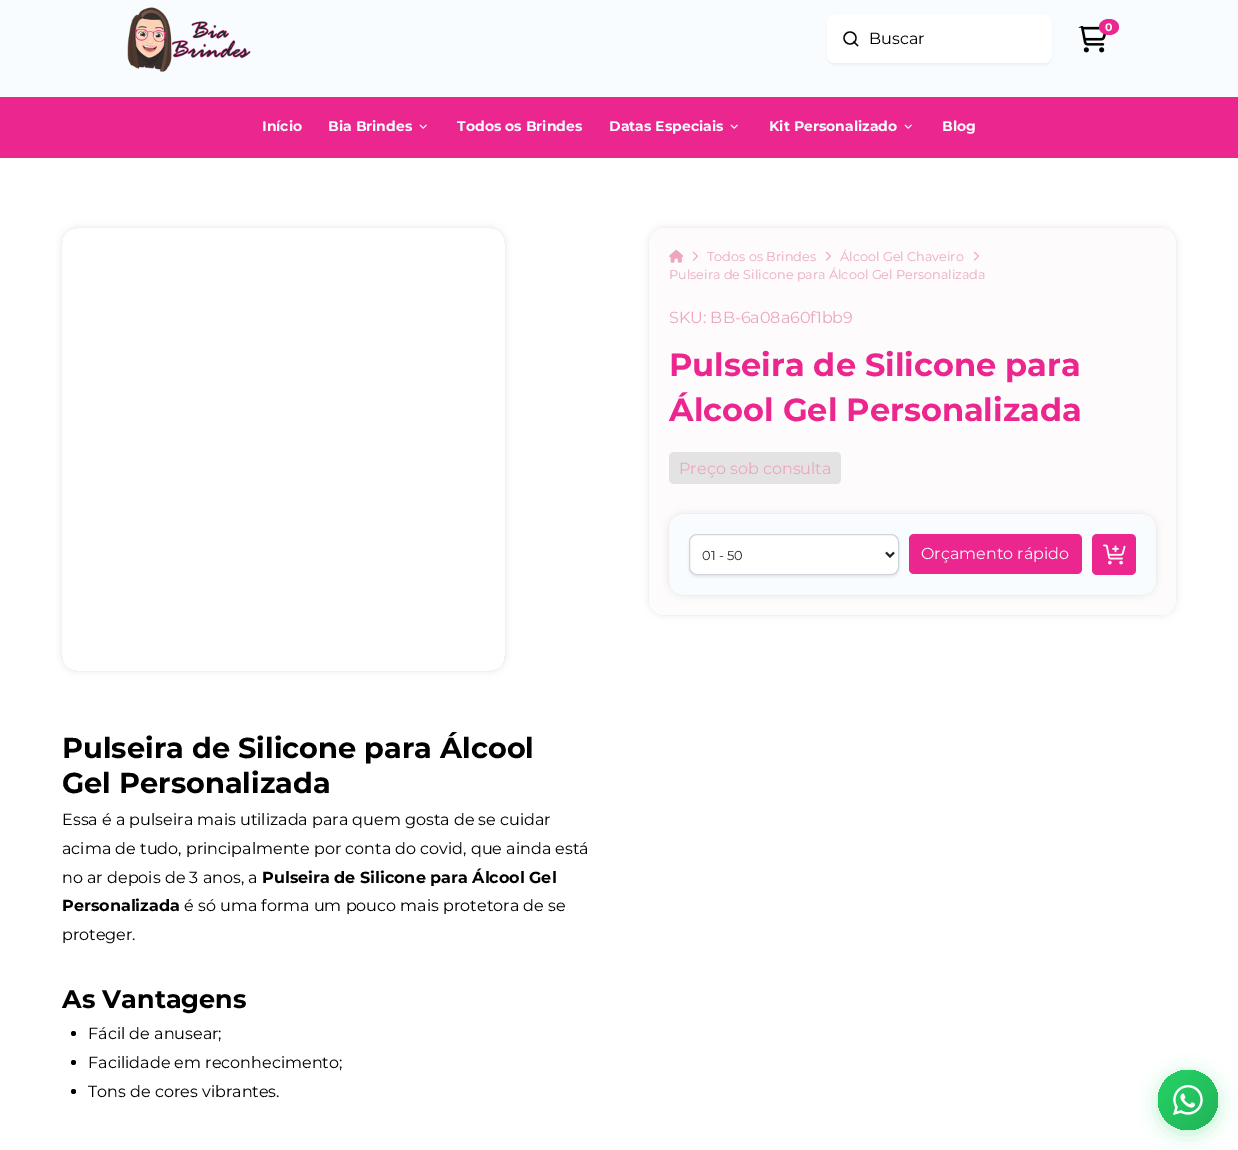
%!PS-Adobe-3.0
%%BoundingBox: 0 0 1238 1150
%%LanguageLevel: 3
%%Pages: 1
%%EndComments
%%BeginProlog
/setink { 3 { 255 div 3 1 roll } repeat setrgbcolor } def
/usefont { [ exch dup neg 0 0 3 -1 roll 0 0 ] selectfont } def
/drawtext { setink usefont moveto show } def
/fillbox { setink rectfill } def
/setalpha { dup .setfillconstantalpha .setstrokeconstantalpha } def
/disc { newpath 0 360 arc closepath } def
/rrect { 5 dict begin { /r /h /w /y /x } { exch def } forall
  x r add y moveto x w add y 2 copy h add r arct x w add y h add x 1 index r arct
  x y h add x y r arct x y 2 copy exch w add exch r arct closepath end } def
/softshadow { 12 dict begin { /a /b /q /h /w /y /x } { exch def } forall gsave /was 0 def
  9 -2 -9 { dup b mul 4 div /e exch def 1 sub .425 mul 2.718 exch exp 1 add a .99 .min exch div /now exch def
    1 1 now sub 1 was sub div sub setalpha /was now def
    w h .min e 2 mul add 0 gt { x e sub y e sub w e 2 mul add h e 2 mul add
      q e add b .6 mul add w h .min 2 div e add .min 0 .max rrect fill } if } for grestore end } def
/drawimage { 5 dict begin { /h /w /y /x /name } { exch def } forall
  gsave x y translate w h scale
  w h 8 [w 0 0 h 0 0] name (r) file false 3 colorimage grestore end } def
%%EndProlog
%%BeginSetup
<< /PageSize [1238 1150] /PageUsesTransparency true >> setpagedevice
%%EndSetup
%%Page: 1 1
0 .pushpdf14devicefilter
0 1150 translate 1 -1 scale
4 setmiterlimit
0 0 1238 1150 255 255 255 fillbox
0 0 1238 97 249 252 255 fillbox
(assets/img1.rgb) 127 7 124 65 drawimage
(assets/img2.rgb) 1078 26 28 27 drawimage
236 38 143 setink
1109 19 moveto 1114.5 19 1119 22.5 1119 27 curveto 1119 31.5 1114.5 35 1109 35 curveto 1103.5 35 1099 31.5 1099 27 curveto 1099 22.5 1103.5 19 1109 19 curveto closepath fill
(0) 1105 31 /Montserrat-Bold 11 249 252 255 drawtext
33 37 41 setink
827 17 225 48 8 1 0.06 softshadow
255 255 255 setink
827 15 225 48 8 rrect fill
0 0 0 setink
1.3 setlinewidth
850 38 6 disc stroke
2 setlinecap
857.5 45.5 moveto 854 42 lineto stroke
(Buscar) 869 44 /Montserrat-Regular 16 0 0 0 drawtext
0 97 1238 61 236 38 143 fillbox
(Início) 262 131 /Montserrat-Bold 14 249 252 255 drawtext
(Bia Brindes) 328 131 /Montserrat-Bold 14 249 252 255 drawtext
(assets/img3.rgb) 419 124 8 5 drawimage
(Todos os Brindes) 457 131 /Montserrat-Bold 14 249 252 255 drawtext
(Datas Especiais) 609 131 /Montserrat-Bold 14 249 252 255 drawtext
(assets/img3.rgb) 730 124 8 5 drawimage
(Kit Personalizado) 769 131 /Montserrat-Bold 14 249 252 255 drawtext
(assets/img3.rgb) 904 124 8 5 drawimage
(Blog) 942 131 /Montserrat-Bold 14 249 252 255 drawtext
0 0 0 setink
649 228 527 387 15 3.5 0.11 softshadow
253 251 251 setink
649 228 527 387 15 rrect fill
(assets/img4.rgb) 669 249 14 14 drawimage
(assets/img5.rgb) 692 251 6 10 drawimage
(Todos os Brindes) 707 261 /Montserrat-Regular 12.8 237 166 192 drawtext
(assets/img5.rgb) 825 251 6 10 drawimage
(Álcool Gel Chaveiro) 840 261 /Montserrat-Regular 12.8 237 166 192 drawtext
(assets/img5.rgb) 973 251 6 10 drawimage
(Pulseira de Silicone para Álcool Gel Personalizada) 669 279 /Montserrat-Regular 12.8 237 166 192 drawtext
(SKU: BB-6a08a60f1bb9) 669 323 /Montserrat-Regular 16 237 166 192 drawtext
(Pulseira de Silicone para) 669 376 /Montserrat-Bold 32 236 38 143 drawtext
(Álcool Gel Personalizada) 669 421 /Montserrat-Bold 32 236 38 143 drawtext
228 227 227 setink
669 452 172 32 5 rrect fill
(Preço sob consulta) 679 474 /Montserrat-Regular 16 237 166 192 drawtext
0 0 0 setink
669 514 487 81 15 3.5 0.11 softshadow
249 252 255 setink
669 514 487 81 15 rrect fill
33 37 41 setink
689 536 210 41 8 1 0.08 softshadow
255 255 255 setink
689.5 534.5 209 40 7.5 rrect gsave fill grestore
206 212 218 setink
1 setlinewidth
0 setlinecap
stroke
33 37 41 setink
2 setlinewidth
886 552.5 moveto 890 556.5 lineto 894 552.5 lineto stroke
(01 - 50) 702 560 /Montserrat-Regular 13 33 37 41 drawtext
236 38 143 setink
909 534 173 40 5 rrect fill
(Orçamento rápido) 921 559 /Montserrat-Regular 16 246 246 246 drawtext
236 38 143 setink
1092 534 44 41 5 rrect fill
(assets/img6.rgb) 1103 544 23 21 drawimage
gsave
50 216 moveto 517 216 lineto 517 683 lineto 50 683 lineto closepath 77 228 moveto 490 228 lineto 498.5 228 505 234.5 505 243 curveto 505 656 lineto 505 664.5 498.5 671 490 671 curveto 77 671 lineto 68.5 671 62 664.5 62 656 curveto 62 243 lineto 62 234.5 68.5 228 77 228 curveto closepath eoclip newpath
0 0 0 setink
62 228 443 443 15 3.5 0.11 softshadow
grestore
(Pulseira de Silicone para Álcool) 62 758 /Montserrat-Bold 28.75 0 0 0 drawtext
(Gel Personalizada) 62 793 /Montserrat-Bold 28.75 0 0 0 drawtext
(Essa é a pulseira mais utilizada para quem gosta de se cuidar) 62 825 /Montserrat-Regular 16 0 0 0 drawtext
(acima de tudo, principalmente por conta do covid, que ainda está) 62 854 /Montserrat-Regular 16 0 0 0 drawtext
(no ar depois de 3 anos, a) 62 883 /Montserrat-Regular 16 0 0 0 drawtext
(Pulseira de Silicone para Álcool Gel) 262 883 /Montserrat-Bold 16 0 0 0 drawtext
(Personalizada) 62 911 /Montserrat-Bold 16 0 0 0 drawtext
(é só uma forma um pouco mais protetora de se) 184 911 /Montserrat-Regular 16 0 0 0 drawtext
(proteger.) 62 940 /Montserrat-Regular 16 0 0 0 drawtext
(As Vantagens) 62 1008 /Montserrat-Bold 25.5 0 0 0 drawtext
73.5 1033.5 2.5 disc fill
(Fácil de anusear;) 88 1039 /Montserrat-Regular 16 0 0 0 drawtext
73.5 1062.5 2.5 disc fill
(Facilidade em reconhecimento;) 88 1068 /Montserrat-Regular 16 0 0 0 drawtext
73.5 1091.5 2.5 disc fill
(Tons de cores vibrantes.) 88 1097 /Montserrat-Regular 16 0 0 0 drawtext
37 211 102 setink
1158 1074 60 60 30 10 0.3 softshadow
gsave 1188 1100 30 disc clip newpath
<< /ShadingType 2 /ColorSpace /DeviceRGB /Coords [1158 1070 1218 1130] /Extend [true true] /Function << /FunctionType 2 /Domain [0 1] /C0 [0.145 0.827 0.4] /C1 [0.133 0.702 0.345] /N 1 >> >> shfill grestore
(assets/img7.rgb) 1173 1085 30 30 drawimage
.poppdf14devicefilter showpage
%%EOF
